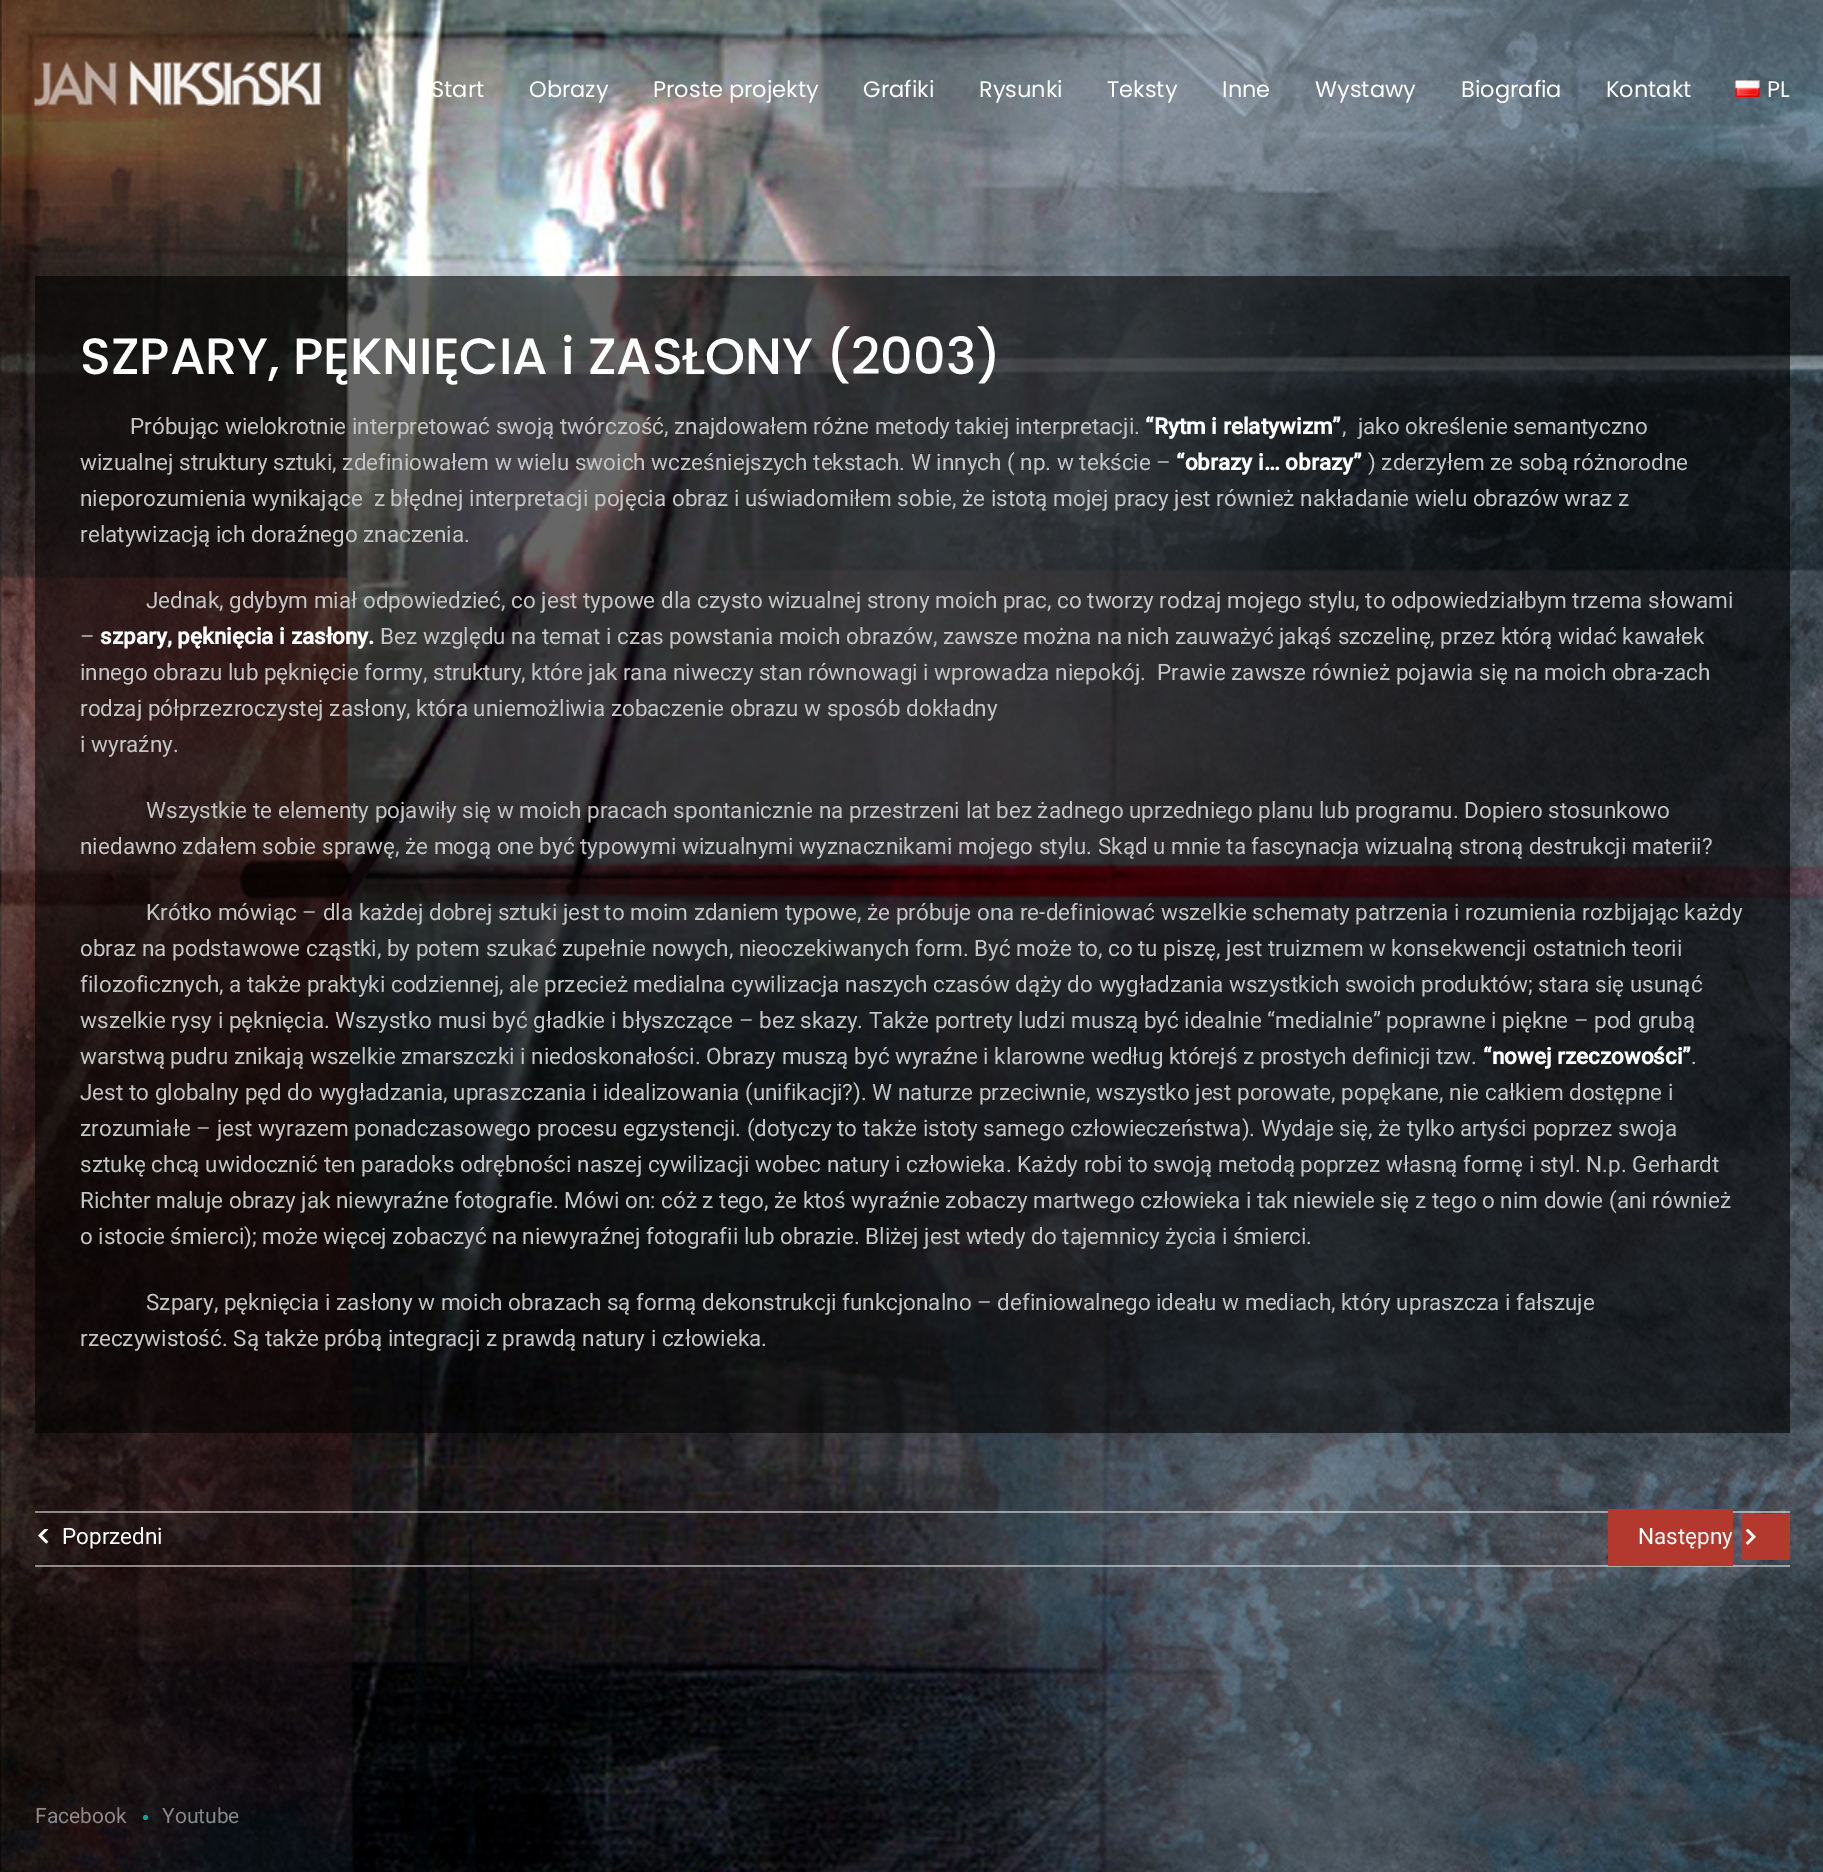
%!PS-Adobe-3.0
%%BoundingBox: 0 0 1823 1872
%%LanguageLevel: 3
%%Pages: 1
%%EndComments
%%BeginProlog
/setink { 3 { 255 div 3 1 roll } repeat setrgbcolor } def
/usefont { [ exch dup neg 0 0 3 -1 roll 0 0 ] selectfont } def
/drawtext { setink usefont moveto show } def
/fillbox { setink rectfill } def
/setalpha { dup .setfillconstantalpha .setstrokeconstantalpha } def
/disc { newpath 0 360 arc closepath } def
/drawimage { 5 dict begin { /h /w /y /x /name } { exch def } forall
  gsave x y translate w h scale
  w h 8 [w 0 0 h 0 0] name (r) file false 3 colorimage grestore end } def
%%EndProlog
%%BeginSetup
<< /PageSize [1823 1872] /PageUsesTransparency true >> setpagedevice
%%EndSetup
%%Page: 1 1
0 .pushpdf14devicefilter
0 1872 translate 1 -1 scale
4 setmiterlimit
0 0 1823 1872 255 255 255 fillbox
(assets/img1.rgb) 0 0 1823 1872 drawimage
(assets/img2.rgb) 34 61 287 45 drawimage
(Start) 431 97 /Poppins-Regular 22.5 255 255 255 drawtext
(Obrazy) 529 97 /Poppins-Regular 22.5 255 255 255 drawtext
(Proste projekty) 653 97 /Poppins-Regular 22.5 255 255 255 drawtext
(Grafiki) 863 97 /Poppins-Regular 22.5 255 255 255 drawtext
(Rysunki) 979 97 /Poppins-Regular 22.5 255 255 255 drawtext
(Teksty) 1107 97 /Poppins-Regular 22.5 255 255 255 drawtext
(Inne) 1222 97 /Poppins-Regular 22.5 255 255 255 drawtext
(Wystawy) 1315 97 /Poppins-Regular 22.5 255 255 255 drawtext
(Biografia) 1461 97 /Poppins-Regular 22.5 255 255 255 drawtext
(Kontakt) 1606 97 /Poppins-Regular 22.5 255 255 255 drawtext
(assets/img3.rgb) 1735 80 25 17 drawimage
(PL) 1767 97 /Poppins-Regular 22.5 255 255 255 drawtext
0.6 setalpha
35 276 1755 1157 0 0 0 fillbox
1 setalpha
(SZPARY, PĘKNIĘCIA i ZASŁONY \(2003\)) 80 374 /Poppins-Medium 51 255 255 255 drawtext
(Próbując wielokrotnie interpretować swoją twórczość, znajdowałem różne metody takiej interpretacji.) 130 434 /Roboto-Regular 22.5 196 196 196 drawtext
(“Rytm i relatywizm”) 1145 434 /Roboto-Bold 22.5 255 255 255 drawtext
(,  jako określenie semantyczno) 1342 434 /Roboto-Regular 22.5 196 196 196 drawtext
(wizualnej struktury sztuki, zdefiniowałem w wielu swoich wcześniejszych tekstach. W innych \( np. w tekście –) 80 470 /Roboto-Regular 22.5 196 196 196 drawtext
(“obrazy i… obrazy”) 1176 470 /Roboto-Bold 22.5 255 255 255 drawtext
(\) zderzyłem ze sobą różnorodne) 1368 470 /Roboto-Regular 22.5 196 196 196 drawtext
(nieporozumienia wynikające  z błędnej interpretacji pojęcia obraz i uświadomiłem sobie, że istotą mojej pracy jest również nakładanie wielu obrazów wraz z) 80 506 /Roboto-Regular 22.5 196 196 196 drawtext
(relatywizacją ich doraźnego znaczenia.) 80 542 /Roboto-Regular 22.5 196 196 196 drawtext
(Jednak, gdybym miał odpowiedzieć, co jest typowe dla czysto wizualnej strony moich prac, co tworzy rodzaj mojego stylu, to odpowiedziałbym trzema słowami) 146 608 /Roboto-Regular 22.5 196 196 196 drawtext
(–) 80 644 /Roboto-Regular 22.5 196 196 196 drawtext
(szpary, pęknięcia i zasłony.) 100 644 /Roboto-Bold 22.5 255 255 255 drawtext
(Bez względu na temat i czas powstania moich obrazów, zawsze można na nich zauważyć jakąś szczelinę, przez którą widać kawałek) 380 644 /Roboto-Regular 22.5 196 196 196 drawtext
(innego obrazu lub pęknięcie formy, struktury, które jak rana niweczy stan równowagi i wprowadza niepokój.  Prawie zawsze również pojawia się na moich obra-zach) 80 680 /Roboto-Regular 22.5 196 196 196 drawtext
(rodzaj półprzezroczystej zasłony, która uniemożliwia zobaczenie obrazu w sposób dokładny) 80 716 /Roboto-Regular 22.5 196 196 196 drawtext
(i wyraźny.) 80 752 /Roboto-Regular 22.5 196 196 196 drawtext
(Wszystkie te elementy pojawiły się w moich pracach spontanicznie na przestrzeni lat bez żadnego uprzedniego planu lub programu. Dopiero stosunkowo) 146 818 /Roboto-Regular 22.5 196 196 196 drawtext
(niedawno zdałem sobie sprawę, że mogą one być typowymi wizualnymi wyznacznikami mojego stylu. Skąd u mnie ta fascynacja wizualną stroną destrukcji materii?) 80 854 /Roboto-Regular 22.5 196 196 196 drawtext
(Krótko mówiąc – dla każdej dobrej sztuki jest to moim zdaniem typowe, że próbuje ona re-definiować wszelkie schematy patrzenia i rozumienia rozbijając każdy) 146 920 /Roboto-Regular 22.5 196 196 196 drawtext
(obraz na podstawowe cząstki, by potem szukać zupełnie nowych, nieoczekiwanych form. Być może to, co tu piszę, jest truizmem w konsekwencji ostatnich teorii) 80 956 /Roboto-Regular 22.5 196 196 196 drawtext
(filozoficznych, a także praktyki codziennej, ale przecież medialna cywilizacja naszych czasów dąży do wygładzania wszystkich swoich produktów; stara się usunąć) 80 992 /Roboto-Regular 22.5 196 196 196 drawtext
(wszelkie rysy i pęknięcia. Wszystko musi być gładkie i błyszczące – bez skazy. Także portrety ludzi muszą być idealnie “medialnie” poprawne i piękne – pod grubą) 80 1028 /Roboto-Regular 22.5 196 196 196 drawtext
(warstwą pudru znikają wszelkie zmarszczki i niedoskonałości. Obrazy muszą być wyraźne i klarowne według którejś z prostych definicji tzw.) 80 1064 /Roboto-Regular 22.5 196 196 196 drawtext
(“nowej rzeczowości”) 1483 1064 /Roboto-Bold 22.5 255 255 255 drawtext
(.) 1691 1064 /Roboto-Regular 22.5 196 196 196 drawtext
(Jest to globalny pęd do wygładzania, upraszczania i idealizowania \(unifikacji?\). W naturze przeciwnie, wszystko jest porowate, popękane, nie całkiem dostępne i) 80 1100 /Roboto-Regular 22.5 196 196 196 drawtext
(zrozumiałe – jest wyrazem ponadczasowego procesu egzystencji. \(dotyczy to także istoty samego człowieczeństwa\). Wydaje się, że tylko artyści poprzez swoja) 80 1136 /Roboto-Regular 22.5 196 196 196 drawtext
(sztukę chcą uwidocznić ten paradoks odrębności naszej cywilizacji wobec natury i człowieka. Każdy robi to swoją metodą poprzez własną formę i styl. N.p. Gerhardt) 80 1172 /Roboto-Regular 22.5 196 196 196 drawtext
(Richter maluje obrazy jak niewyraźne fotografie. Mówi on: cóż z tego, że ktoś wyraźnie zobaczy martwego człowieka i tak niewiele się z tego o nim dowie \(ani również) 80 1208 /Roboto-Regular 22.5 196 196 196 drawtext
(o istocie śmierci\); może więcej zobaczyć na niewyraźnej fotografii lub obrazie. Bliżej jest wtedy do tajemnicy życia i śmierci.) 80 1244 /Roboto-Regular 22.5 196 196 196 drawtext
(Szpary, pęknięcia i zasłony w moich obrazach są formą dekonstrukcji funkcjonalno – definiowalnego ideału w mediach, który upraszcza i fałszuje) 146 1310 /Roboto-Regular 22.5 196 196 196 drawtext
(rzeczywistość. Są także próbą integracji z prawdą natury i człowieka.) 80 1346 /Roboto-Regular 22.5 196 196 196 drawtext
0.5 setalpha
35 1511 1755 2 255 255 255 fillbox
35 1565 1755 2 255 255 255 fillbox
1 setalpha
(assets/img4.rgb) 38 1529 11 15 drawimage
(Poprzedni) 62 1544 /Roboto-Regular 22.5 255 255 255 drawtext
1608 1509 125 57 179 57 46 fillbox
1742 1514 48 46 179 57 46 fillbox
(Następny) 1638 1544 /Roboto-Regular 22.5 255 255 255 drawtext
(assets/img5.rgb) 1745 1529 11 16 drawimage
(Facebook) 35 1823 /Roboto-Regular 21 142 136 136 drawtext
3 166 150 setink
145.5 1817.5 2.5 disc fill
(Youtube) 162 1823 /Roboto-Regular 21 135 135 137 drawtext
.poppdf14devicefilter showpage
%%EOF
